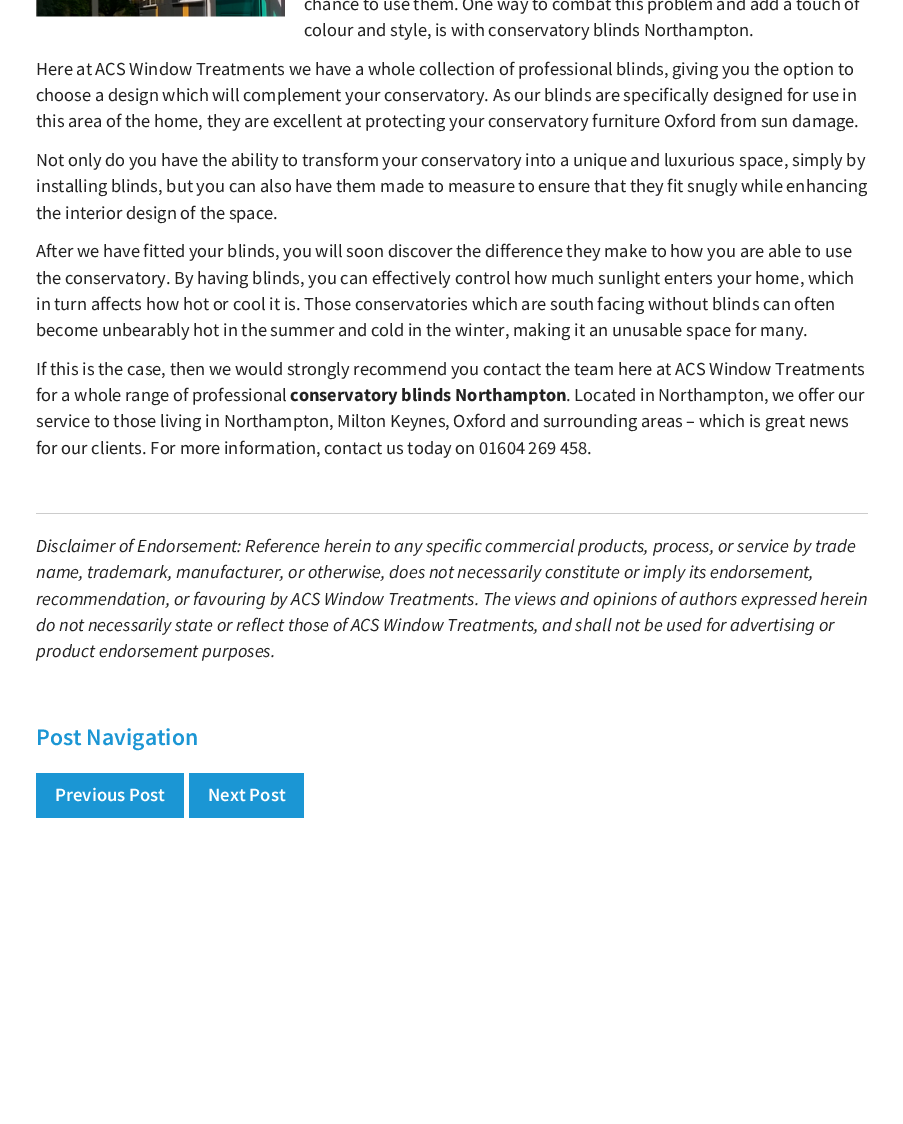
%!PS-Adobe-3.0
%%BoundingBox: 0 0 903 1124
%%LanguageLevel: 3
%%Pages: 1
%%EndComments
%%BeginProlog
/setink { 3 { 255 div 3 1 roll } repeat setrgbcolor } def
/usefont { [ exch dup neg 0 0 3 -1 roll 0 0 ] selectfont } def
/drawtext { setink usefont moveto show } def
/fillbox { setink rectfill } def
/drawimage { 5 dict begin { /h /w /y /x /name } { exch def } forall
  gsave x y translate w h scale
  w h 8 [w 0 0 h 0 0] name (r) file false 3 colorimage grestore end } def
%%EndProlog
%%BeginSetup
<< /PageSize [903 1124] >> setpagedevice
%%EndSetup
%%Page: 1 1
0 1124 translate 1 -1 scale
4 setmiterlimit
0 0 903 1124 255 255 255 fillbox
(chance to use them. One way to combat this problem and add a touch of) 304 10 /SourceSansPro-Regular 18.4 34 34 34 drawtext
(colour and style, is with conservatory blinds Northampton.) 304 36 /SourceSansPro-Regular 18.4 34 34 34 drawtext
(Here at ACS Window Treatments we have a whole collection of professional blinds, giving you the option to) 36 75 /SourceSansPro-Regular 18.4 34 34 34 drawtext
(choose a design which will complement your conservatory. As our blinds are specifically designed for use in) 36 101 /SourceSansPro-Regular 18.4 34 34 34 drawtext
(this area of the home, they are excellent at protecting your conservatory furniture Oxford from sun damage.) 36 127 /SourceSansPro-Regular 18.4 34 34 34 drawtext
(Not only do you have the ability to transform your conservatory into a unique and luxurious space, simply by) 36 166 /SourceSansPro-Regular 18.4 34 34 34 drawtext
(installing blinds, but you can also have them made to measure to ensure that they fit snugly while enhancing) 36 192 /SourceSansPro-Regular 18.4 34 34 34 drawtext
(the interior design of the space.) 36 219 /SourceSansPro-Regular 18.4 34 34 34 drawtext
(After we have fitted your blinds, you will soon discover the difference they make to how you are able to use) 36 257 /SourceSansPro-Regular 18.4 34 34 34 drawtext
(the conservatory. By having blinds, you can effectively control how much sunlight enters your home, which) 36 284 /SourceSansPro-Regular 18.4 34 34 34 drawtext
(in turn affects how hot or cool it is. Those conservatories which are south facing without blinds can often) 36 310 /SourceSansPro-Regular 18.4 34 34 34 drawtext
(become unbearably hot in the summer and cold in the winter, making it an unusable space for many.) 36 336 /SourceSansPro-Regular 18.4 34 34 34 drawtext
(If this is the case, then we would strongly recommend you contact the team here at ACS Window Treatments) 36 375 /SourceSansPro-Regular 18.4 34 34 34 drawtext
(for a whole range of professional) 36 401 /SourceSansPro-Regular 18.4 34 34 34 drawtext
(conservatory blinds Northampton) 290 401 /SourceSansPro-Bold 18.4 34 34 34 drawtext
(. Located in Northampton, we offer our) 566 401 /SourceSansPro-Regular 18.4 34 34 34 drawtext
(service to those living in Northampton, Milton Keynes, Oxford and surrounding areas – which is great news) 36 427 /SourceSansPro-Regular 18.4 34 34 34 drawtext
(for our clients. For more information, contact us today on 01604 269 458.) 36 454 /SourceSansPro-Regular 18.4 34 34 34 drawtext
36 513 832 1 204 204 204 fillbox
(Disclaimer of Endorsement: Reference herein to any specific commercial products, process, or service by trade) 36 552 /SourceSansPro-Italic 18.4 34 34 34 drawtext
(name, trademark, manufacturer, or otherwise, does not necessarily constitute or imply its endorsement,) 36 578 /SourceSansPro-Italic 18.4 34 34 34 drawtext
(recommendation, or favouring by ACS Window Treatments. The views and opinions of authors expressed herein) 36 605 /SourceSansPro-Italic 18.4 34 34 34 drawtext
(do not necessarily state or reflect those of ACS Window Treatments, and shall not be used for advertising or) 36 631 /SourceSansPro-Italic 18.4 34 34 34 drawtext
(product endorsement purposes.) 36 657 /SourceSansPro-Italic 18.4 34 34 34 drawtext
(assets/img1.rgb) 36 0 249 17 drawimage
(Post Navigation) 36 745 /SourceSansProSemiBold-SemiBold 23.75 27 150 212 drawtext
36 773 148 45 27 150 212 fillbox
(Previous Post) 55 801 /SourceSansProSemiBold-SemiBold 18.75 255 255 255 drawtext
189 773 115 45 27 150 212 fillbox
(Next Post) 208 801 /SourceSansProSemiBold-SemiBold 18.75 255 255 255 drawtext
showpage
%%EOF
